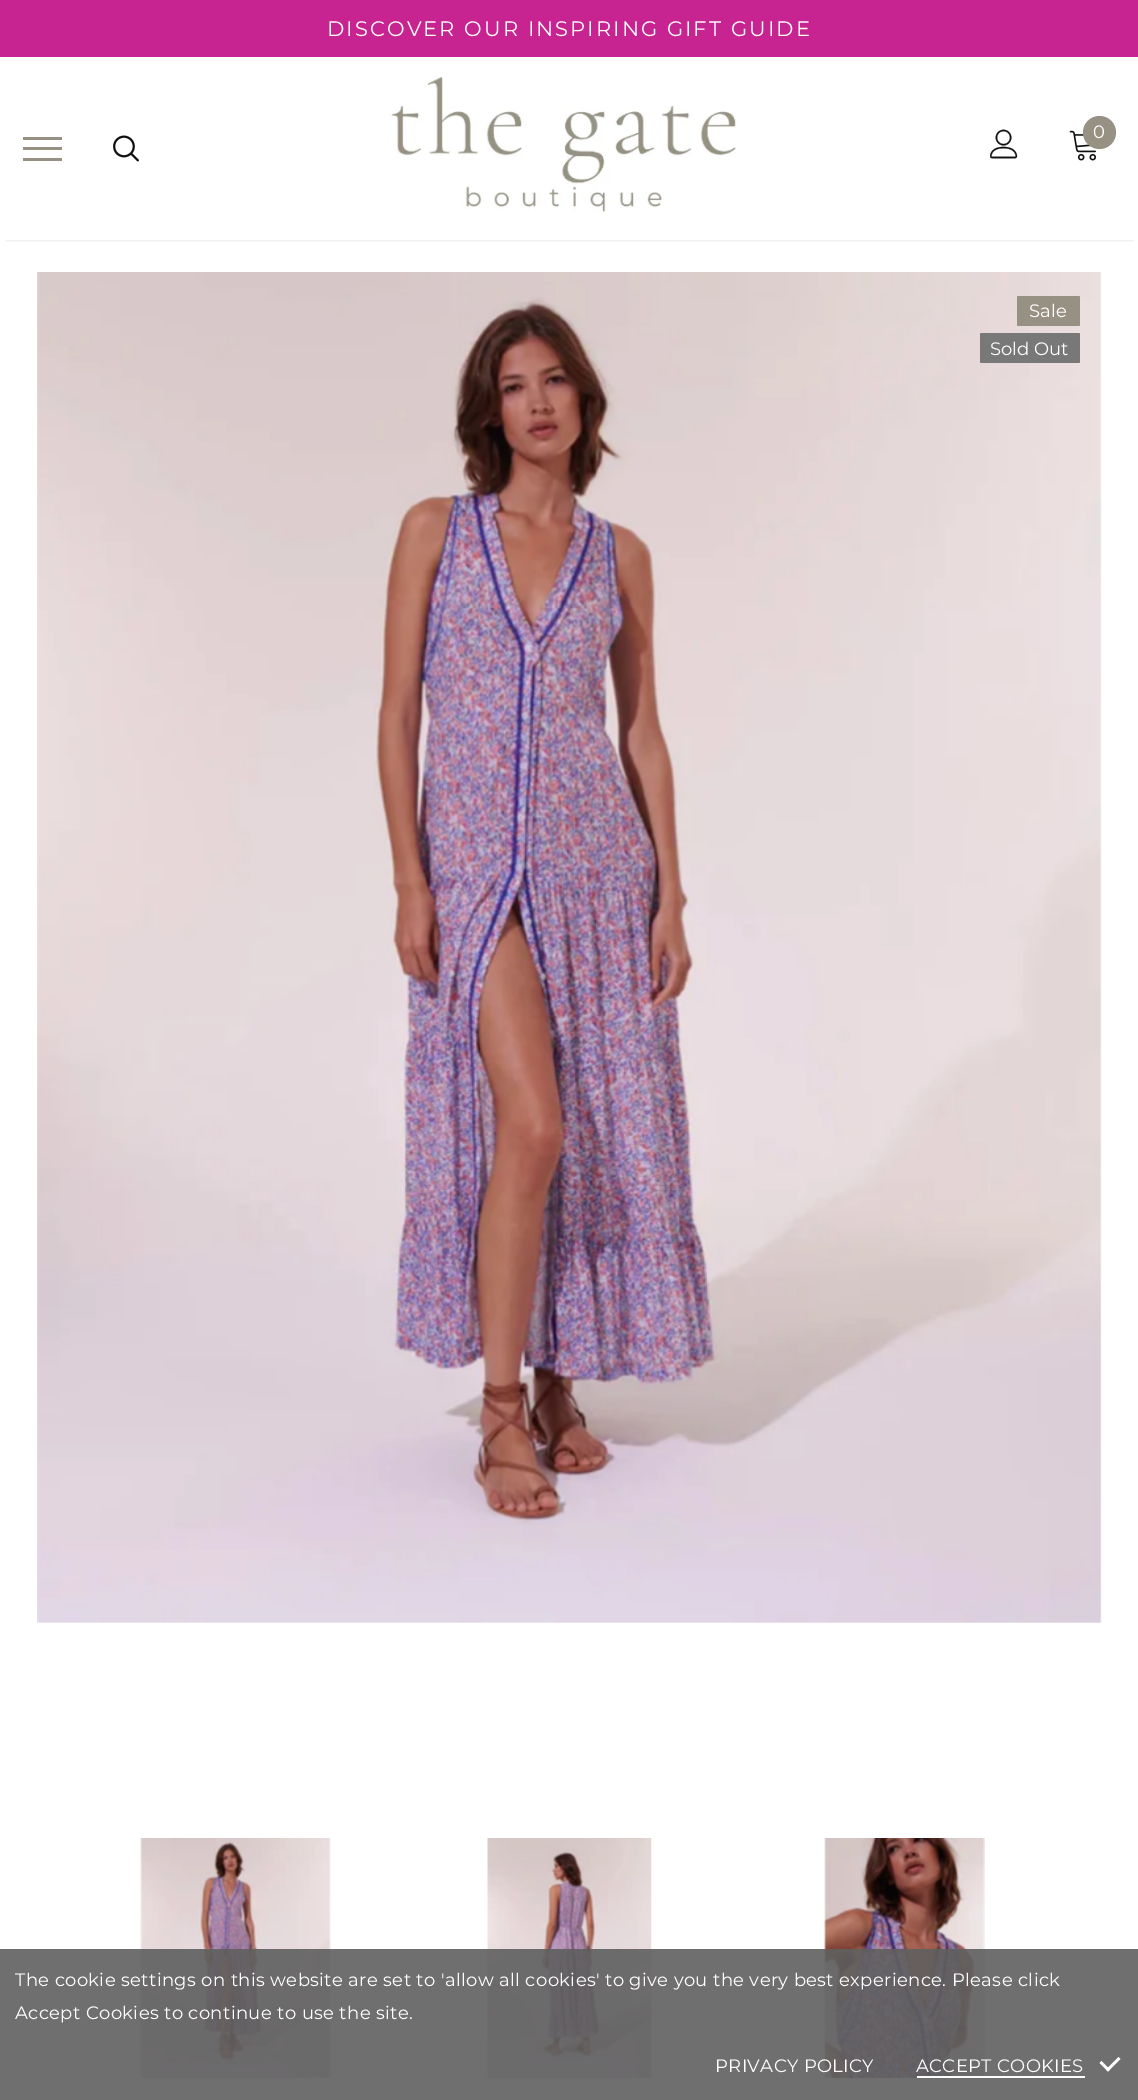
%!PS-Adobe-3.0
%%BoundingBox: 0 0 1138 2100
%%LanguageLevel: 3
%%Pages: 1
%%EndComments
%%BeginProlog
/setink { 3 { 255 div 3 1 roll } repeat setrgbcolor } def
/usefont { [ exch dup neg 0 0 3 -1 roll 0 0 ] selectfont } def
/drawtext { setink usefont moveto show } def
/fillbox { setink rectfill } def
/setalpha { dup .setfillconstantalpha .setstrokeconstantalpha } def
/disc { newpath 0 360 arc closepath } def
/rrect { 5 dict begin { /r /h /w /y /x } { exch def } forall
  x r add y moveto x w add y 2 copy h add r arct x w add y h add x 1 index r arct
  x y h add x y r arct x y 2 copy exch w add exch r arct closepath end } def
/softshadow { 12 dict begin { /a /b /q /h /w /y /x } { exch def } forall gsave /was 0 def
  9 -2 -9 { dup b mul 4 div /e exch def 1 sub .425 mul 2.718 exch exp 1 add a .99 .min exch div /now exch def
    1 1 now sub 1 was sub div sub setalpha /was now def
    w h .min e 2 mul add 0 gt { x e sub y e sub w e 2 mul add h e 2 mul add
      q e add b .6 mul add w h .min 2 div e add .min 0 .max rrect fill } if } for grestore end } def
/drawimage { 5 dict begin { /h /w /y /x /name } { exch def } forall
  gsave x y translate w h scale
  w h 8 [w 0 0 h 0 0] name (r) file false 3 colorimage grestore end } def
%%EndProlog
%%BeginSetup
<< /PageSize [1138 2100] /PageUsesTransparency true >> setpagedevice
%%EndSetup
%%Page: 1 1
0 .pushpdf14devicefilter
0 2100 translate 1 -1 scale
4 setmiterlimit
0 0 1138 2100 255 255 255 fillbox
0 0 1138 57 199 35 145 fillbox
/Montserrat-Regular 21 usefont
255 255 255 setink
327 36 moveto 2.1 0 (DISCOVER OUR INSPIRING GIFT GUIDE) ashow
gsave
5 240 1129 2 rectclip
0 0 0 setink
5 66 1129 174 0 2 0.12 softshadow
grestore
(assets/img1.rgb) 389 76 348 137 drawimage
(assets/img2.rgb) 990 129 28 30 drawimage
(assets/img3.rgb) 1069 130 27 31 drawimage
150 145 131 setink
1099.5 132.5 16.5 disc fill
/Montserrat-Regular 18 usefont
255 255 255 setink
1093 138 moveto 0.36 0 (0) ashow
23 147 39 3 150 145 131 fillbox
23 137 39 3 150 145 131 fillbox
23 158 39 3 150 145 131 fillbox
(assets/img4.rgb) 113 135 26 27 drawimage
(assets/img5.rgb) 37 272 1065 1351 drawimage
1017 296 63 30 1.5 rrect fill
(Sale) 1029 317 /Montserrat-Regular 18 255 255 255 drawtext
120 120 120 setink
980 333 100 30 1.5 rrect fill
(Sold Out) 990 355 /Montserrat-Regular 18 255 255 255 drawtext
(assets/img6.rgb) 140 1838 191 240 drawimage
(assets/img7.rgb) 487 1838 165 240 drawimage
(assets/img8.rgb) 824 1838 161 240 drawimage
0.9 setalpha
0 1949 1138 151 95 95 95 fillbox
1 setalpha
255 255 255 setink
15 1986 moveto 0.36 0 (The cookie settings on this website are set to 'allow all cookies' to give you the very best experience. Please click) ashow
15 2019 moveto 0.36 0 (Accept Cookies to continue to use the site.) ashow
715 2072 moveto 0.36 0 (PRIVACY POLICY) ashow
917 2076 168 2 255 255 255 fillbox
916 2072 moveto 0.36 0 (ACCEPT COOKIES) ashow
1106 2069.5 moveto 1118.5 2057 lineto 1120.5 2059 lineto 1108 2071.5 lineto closepath fill
1099.5 2063 moveto 1101.5 2061 lineto 1110 2069.5 lineto 1108 2071.5 lineto closepath fill
.poppdf14devicefilter showpage
%%EOF
